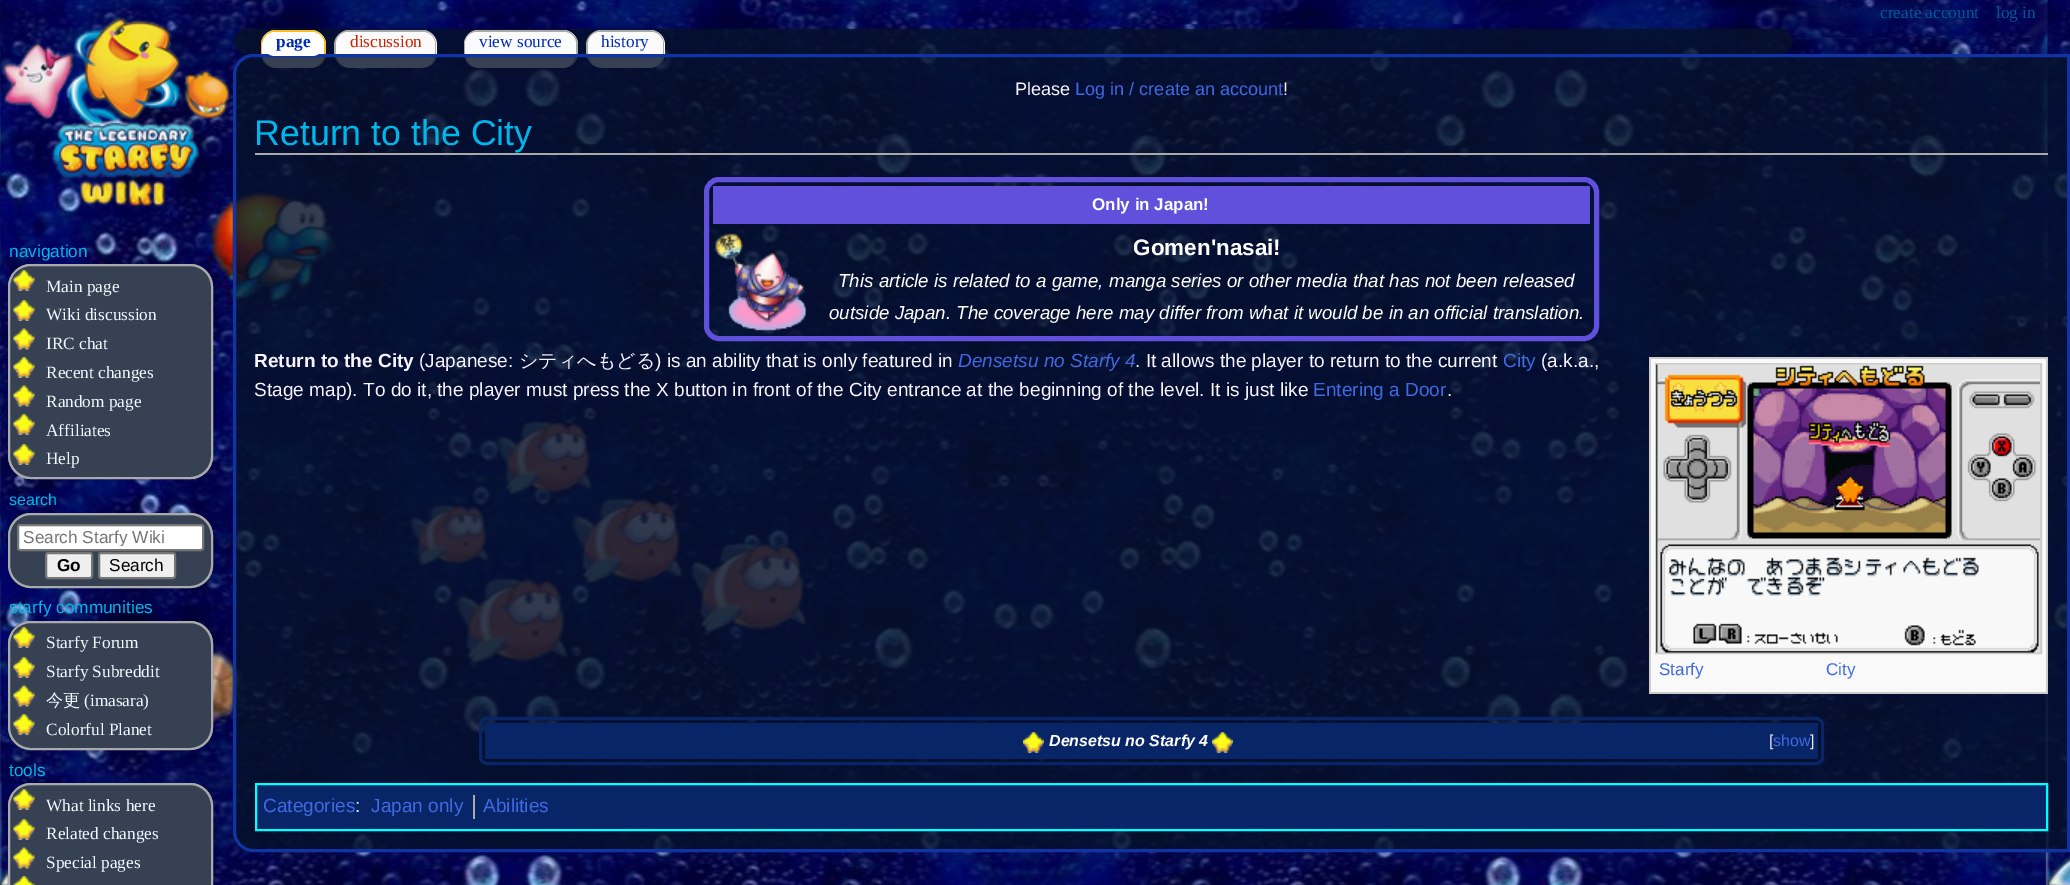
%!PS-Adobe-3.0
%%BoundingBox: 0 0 2070 885
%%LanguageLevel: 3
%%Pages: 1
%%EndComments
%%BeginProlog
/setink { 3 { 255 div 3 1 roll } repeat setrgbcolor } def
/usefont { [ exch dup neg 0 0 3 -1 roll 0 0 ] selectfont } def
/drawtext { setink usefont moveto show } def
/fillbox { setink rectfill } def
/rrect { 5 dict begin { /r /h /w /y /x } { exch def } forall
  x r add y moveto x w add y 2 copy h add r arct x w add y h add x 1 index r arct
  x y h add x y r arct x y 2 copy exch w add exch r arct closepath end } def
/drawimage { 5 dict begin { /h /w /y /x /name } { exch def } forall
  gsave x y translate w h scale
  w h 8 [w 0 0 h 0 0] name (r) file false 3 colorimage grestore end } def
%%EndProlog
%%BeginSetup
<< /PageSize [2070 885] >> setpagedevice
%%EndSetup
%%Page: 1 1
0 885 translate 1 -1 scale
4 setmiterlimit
0 0 2070 885 255 255 255 fillbox
(assets/img1.rgb) 0 0 2070 885 drawimage
(create account) 1880 18 /LiberationSerif-Regular 17.25 0 88 150 drawtext
(log in) 1996 18 /LiberationSerif-Regular 17.25 0 88 150 drawtext
(assets/img2.rgb) 2 17 229 190 drawimage
(assets/img3.rgb) 234 28 1559 26 drawimage
255 255 255 setink
261 30 65 38 15 rrect fill
250 189 35 setink
276 30 moveto 310 30 lineto 319 30 326 37 326 45 curveto 326 52 lineto 326 61 319 68 310 68 curveto 276 68 lineto 268 68 261 61 261 52 curveto 261 45 lineto 261 37 268 30 276 30 curveto closepath 276 32 moveto 310 32 lineto 318 32 324 38 324 45 curveto 324 52 lineto 324 61 318 68 310 68 curveto 276 68 lineto 269 68 262 61 262 52 curveto 262 45 lineto 262 38 269 32 276 32 curveto closepath eofill
255 255 255 setink
335 30 102 38 15 rrect fill
170 170 170 setink
350 30 moveto 422 30 lineto 430 30 436 37 436 45 curveto 436 52 lineto 436 61 430 68 422 68 curveto 350 68 lineto 341 68 334 61 334 52 curveto 334 45 lineto 334 37 341 30 350 30 curveto closepath 350 32 moveto 422 32 lineto 429 32 435 38 435 45 curveto 435 52 lineto 435 61 429 68 422 68 curveto 350 68 lineto 342 68 336 61 336 52 curveto 336 45 lineto 336 38 342 32 350 32 curveto closepath eofill
251 251 251 setink
336 32 99 24 12 rrect fill
255 255 255 setink
464 30 114 38 15 rrect fill
170 170 170 setink
478 30 moveto 562 30 lineto 571 30 578 37 578 45 curveto 578 52 lineto 578 61 571 68 562 68 curveto 478 68 lineto 470 68 464 61 464 52 curveto 464 45 lineto 464 37 470 30 478 30 curveto closepath 478 32 moveto 562 32 lineto 570 32 576 38 576 45 curveto 576 52 lineto 576 61 570 68 562 68 curveto 478 68 lineto 471 68 465 61 465 52 curveto 465 45 lineto 465 38 471 32 478 32 curveto closepath eofill
251 251 251 setink
465 32 111 24 12 rrect fill
255 255 255 setink
587 30 78 38 15 rrect fill
170 170 170 setink
602 30 moveto 650 30 lineto 658 30 664 37 664 45 curveto 664 52 lineto 664 61 658 68 650 68 curveto 602 68 lineto 593 68 586 61 586 52 curveto 586 45 lineto 586 37 593 30 602 30 curveto closepath 602 32 moveto 650 32 lineto 657 32 663 38 663 45 curveto 663 52 lineto 663 61 657 68 650 68 curveto 602 68 lineto 594 68 588 61 588 52 curveto 588 45 lineto 588 38 594 32 602 32 curveto closepath eofill
251 251 251 setink
588 32 75 24 12 rrect fill
(assets/img14.rgb) 232 54 1835 798 drawimage
16 52 166 setink
3 setlinewidth
253 55.5 moveto 2068.5 55.5 lineto 2068.5 850.5 lineto 253 850.5 lineto 243 850.5 234.5 842 234.5 832 curveto 234.5 74 lineto 234.5 64 243 55.5 253 55.5 curveto closepath stroke
255 255 255 setink
263 32 61 24 12 rrect fill
(page) 276 47 /LiberationSerif-Bold 17.25 0 43 184 drawtext
(discussion) 350 47 /LiberationSerif-Regular 17.25 204 34 0 drawtext
(view source) 479 47 /LiberationSerif-Regular 17.25 0 43 184 drawtext
(history) 601 47 /LiberationSerif-Regular 17.25 0 43 184 drawtext
(navigation) 9 257 /LiberationSans-Regular 17.25 0 183 235 drawtext
(assets/img4.rgb) 7 264 206 215 drawimage
170 170 170 setink
2 setlinewidth
9 265 203 213 22 rrect stroke
(assets/img5.rgb) 13 270 22 21 drawimage
(Main page) 46 292 /LiberationSerif-Regular 17.25 240 248 255 drawtext
(assets/img6.rgb) 13 300 22 21 drawimage
(Wiki discussion) 46 320 /LiberationSerif-Regular 17.25 240 248 255 drawtext
(assets/img7.rgb) 13 328 22 22 drawimage
(IRC chat) 46 349 /LiberationSerif-Regular 17.25 240 248 255 drawtext
(assets/img6.rgb) 13 357 22 21 drawimage
(Recent changes) 46 378 /LiberationSerif-Regular 17.25 240 248 255 drawtext
(assets/img7.rgb) 13 385 22 22 drawimage
(Random page) 46 407 /LiberationSerif-Regular 17.25 240 248 255 drawtext
(assets/img6.rgb) 13 414 22 21 drawimage
(Affiliates) 46 436 /LiberationSerif-Regular 17.25 240 248 255 drawtext
(assets/img6.rgb) 13 444 22 21 drawimage
(Help) 46 464 /LiberationSerif-Regular 17.25 240 248 255 drawtext
(search) 9 505 /LiberationSans-Regular 16 0 183 235 drawtext
(assets/img8.rgb) 7 513 206 75 drawimage
170 170 170 setink
9 514 203 73 22 rrect stroke
255 255 255 setink
18 525 185 25 2 rrect gsave fill grestore
118 118 118 setink
stroke
gsave
23 528 157 18 rectclip
(Search Starfy Wiki) 23 543 /LiberationSans-Regular 17.25 117 117 117 drawtext
grestore
239 239 239 setink
46 553 46 25 2 rrect gsave fill grestore
118 118 118 setink
stroke
(Go) 57 571 /LiberationSans-Bold 17.25 0 0 0 drawtext
239 239 239 setink
99 553 76 25 2 rrect gsave fill grestore
118 118 118 setink
stroke
(Search) 109 571 /LiberationSans-Regular 17.25 0 0 0 drawtext
(starfy communities) 9 613 /LiberationSans-Regular 17.25 0 183 235 drawtext
(assets/img9.rgb) 7 621 206 129 drawimage
170 170 170 setink
9 622 203 127 22 rrect stroke
(assets/img10.rgb) 13 627 22 21 drawimage
(Starfy Forum) 46 648 /LiberationSerif-Regular 17.25 240 248 255 drawtext
(assets/img6.rgb) 13 657 22 21 drawimage
(Starfy Subreddit) 46 677 /LiberationSerif-Regular 17.25 240 248 255 drawtext
(assets/img7.rgb) 13 685 22 22 drawimage
(今更) 46 706 /WenQuanYiZenHei-Medium 17.25 240 248 255 drawtext
(\(imasara\)) 84 706 /LiberationSerif-Regular 17.25 240 248 255 drawtext
(assets/img6.rgb) 13 714 22 21 drawimage
(Colorful Planet) 46 735 /LiberationSerif-Regular 17.25 240 248 255 drawtext
(tools) 9 776 /LiberationSans-Regular 17.25 0 183 235 drawtext
(assets/img11.rgb) 7 783 206 102 drawimage
170 170 170 setink
9 784 203 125 22 rrect stroke
(assets/img12.rgb) 13 789 22 21 drawimage
(What links here) 46 811 /LiberationSerif-Regular 17.25 240 248 255 drawtext
(assets/img6.rgb) 13 819 22 21 drawimage
(Related changes) 46 839 /LiberationSerif-Regular 17.25 240 248 255 drawtext
(assets/img7.rgb) 13 847 22 22 drawimage
(Special pages) 46 868 /LiberationSerif-Regular 17.25 240 248 255 drawtext
(assets/img13.rgb) 13 876 22 9 drawimage
(Please) 1015 95 /LiberationSans-Regular 18.1 248 244 255 drawtext
(Log in / create an account) 1075 95 /LiberationSans-Regular 18.1 65 105 225 drawtext
(!) 1283 95 /LiberationSans-Regular 18.1 248 244 255 drawtext
255 153 1793 2 170 170 170 fillbox
(Return to the City) 254 145 /LiberationSans-Regular 35.75 0 183 235 drawtext
96 80 220 setink
5 setlinewidth
706.5 179.5 890 159 12.5 rrect stroke
713 186 877 38 96 80 220 fillbox
(Only in Japan!) 1092 210 /LiberationSans-Bold 17 255 255 255 drawtext
(assets/img15.rgb) 714 232 93 100 drawimage
(Gomen'nasai!) 1133 255 /LiberationSans-Bold 22.5 255 255 255 drawtext
(This article is related to a game, manga series or other media that has not been released) 838 287 /LiberationSans-Italic 18.75 255 255 255 drawtext
(outside Japan. The coverage here may differ from what it would be in an official translation.) 829 319 /LiberationSans-Italic 18.75 255 255 255 drawtext
(Return to the City) 254 367 /LiberationSans-Bold 19.05 248 244 255 drawtext
(\(Japanese:) 419 367 /LiberationSans-Regular 19.05 248 244 255 drawtext
(シティへもどる) 519 367 /WenQuanYiZenHei-Medium 19.05 248 244 255 drawtext
(\) is an ability that is only featured in) 655 367 /LiberationSans-Regular 19.05 248 244 255 drawtext
(Densetsu no Starfy 4) 958 367 /LiberationSans-Italic 19.05 65 105 225 drawtext
(. It allows the player to return to the current) 1135 367 /LiberationSans-Regular 19.05 248 244 255 drawtext
(City) 1503 367 /LiberationSans-Regular 19.05 65 105 225 drawtext
(\(a.k.a.,) 1541 367 /LiberationSans-Regular 19.05 248 244 255 drawtext
(Stage map\). To do it, the player must press the X button in front of the City entrance at the beginning of the level. It is just like) 254 396 /LiberationSans-Regular 19.05 248 244 255 drawtext
(Entering a Door) 1313 396 /LiberationSans-Regular 19.05 65 105 225 drawtext
(.) 1447 396 /LiberationSans-Regular 19.05 248 244 255 drawtext
1651 359 395 333 249 249 249 fillbox
1649 357 399 2 204 204 204 fillbox
1649 692 399 2 204 204 204 fillbox
2046 357 2 336 204 204 204 fillbox
1649 357 2 336 204 204 204 fillbox
2 setlinewidth
1656 364 385 289 rectstroke
(assets/img16.rgb) 1656 364 384 289 drawimage
(Starfy) 1659 675 /LiberationSans-Regular 17 65 105 225 drawtext
(City) 1826 675 /LiberationSans-Regular 17 65 105 225 drawtext
8 37 103 setink
3 setlinewidth
480.5 718.5 1342 45 6.5 rrect stroke
485 723 1333 36 8 37 103 fillbox
(assets/img17.rgb) 1023 732 21 21 drawimage
(Densetsu no Starfy 4) 1049 746 /LiberationSans-BoldItalic 16 255 255 255 drawtext
(assets/img18.rgb) 1212 732 21 21 drawimage
([) 1769 746 /LiberationSans-Regular 16 248 244 255 drawtext
(show) 1773 746 /LiberationSans-Regular 16 65 105 225 drawtext
(]) 1810 746 /LiberationSans-Regular 16 248 244 255 drawtext
8 37 103 setink
256 784 moveto 2047 784 lineto 2047 830 lineto 256 830 lineto closepath gsave fill grestore
0 255 255 setink
2 setlinewidth
stroke
(Categories) 263 812 /LiberationSans-Regular 19.05 65 105 225 drawtext
(:) 355 812 /LiberationSans-Regular 19.05 248 244 255 drawtext
(Japan only) 371 812 /LiberationSans-Regular 19.05 65 105 225 drawtext
473 795 2 24 170 170 170 fillbox
(Abilities) 483 812 /LiberationSans-Regular 19.05 65 105 225 drawtext
showpage
%%EOF
